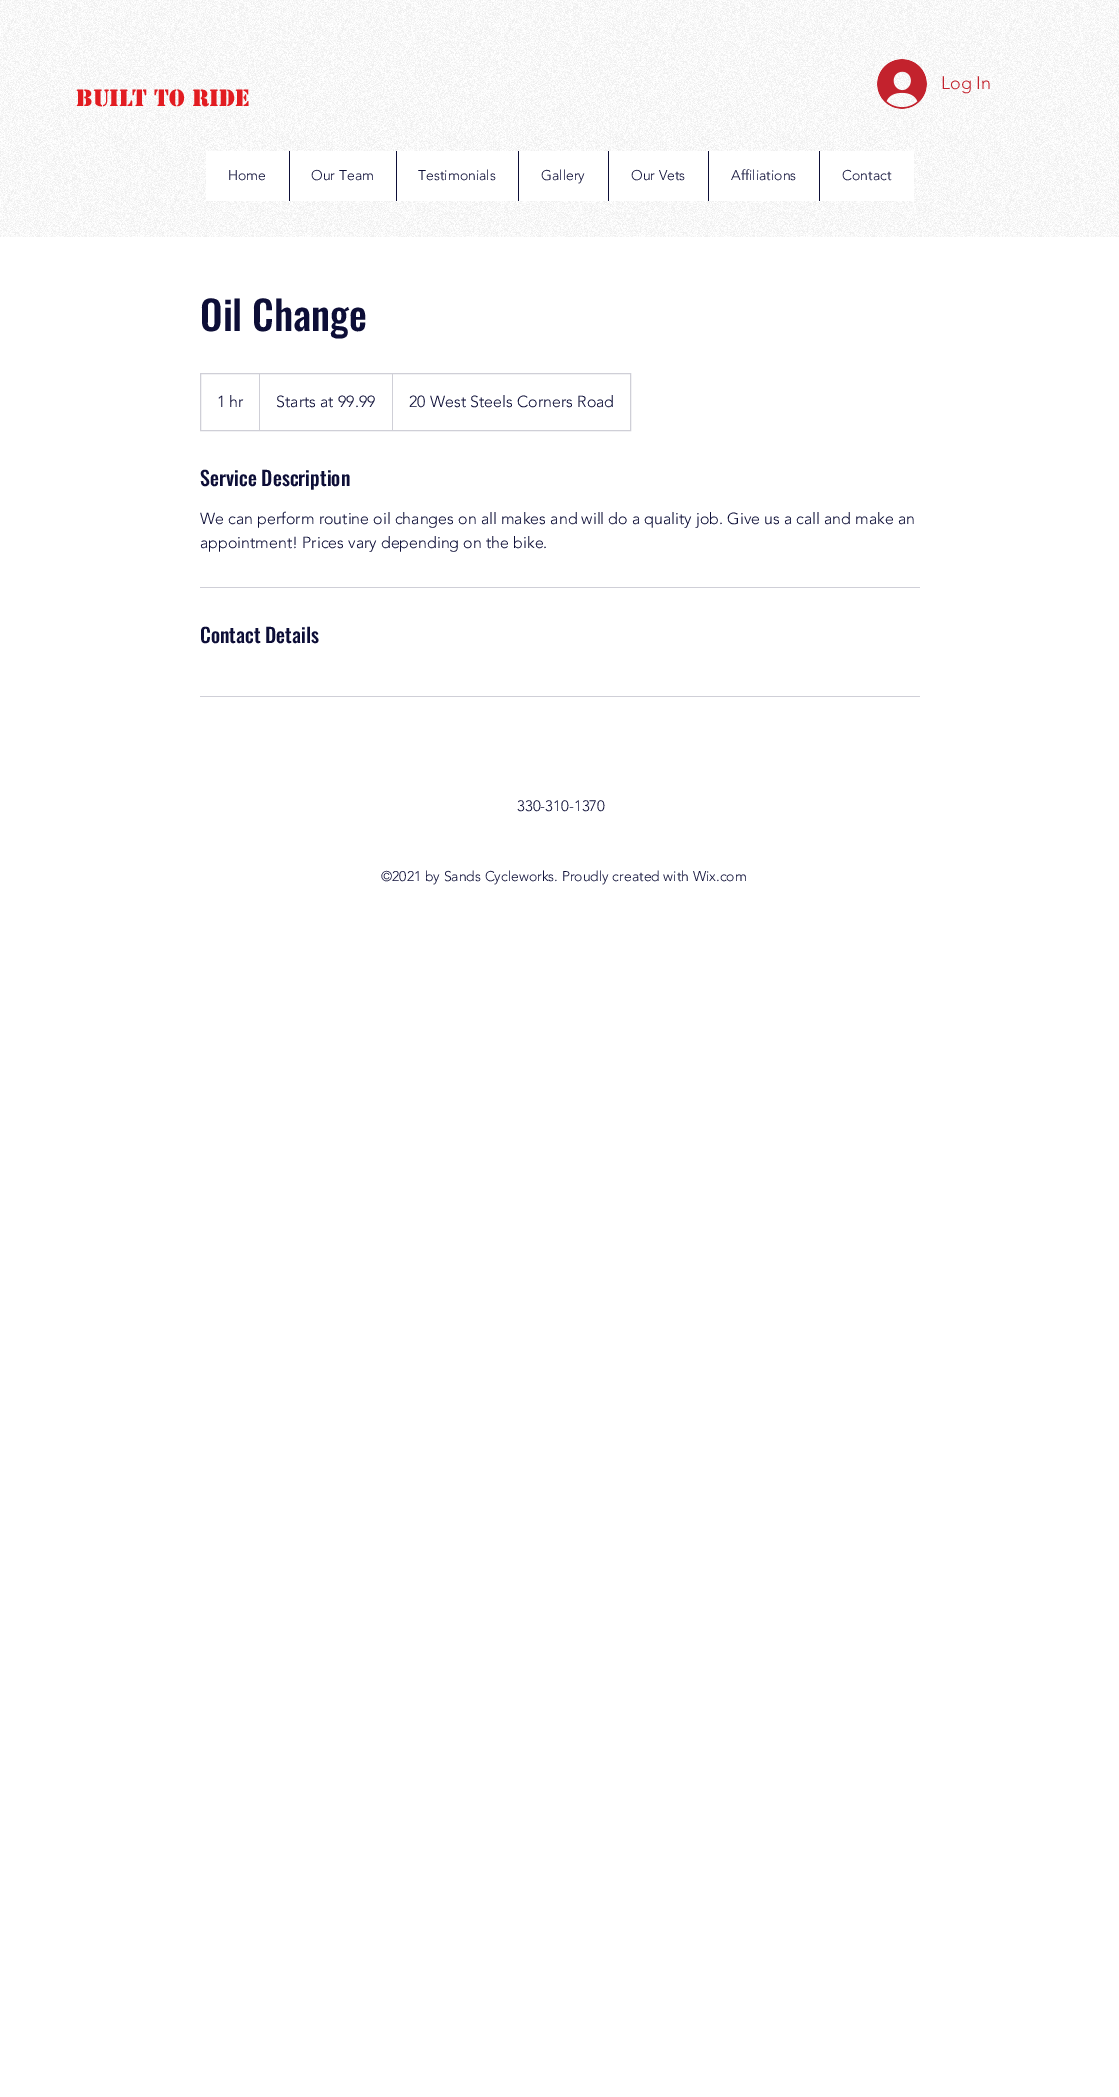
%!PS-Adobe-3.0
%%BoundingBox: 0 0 1119 2097
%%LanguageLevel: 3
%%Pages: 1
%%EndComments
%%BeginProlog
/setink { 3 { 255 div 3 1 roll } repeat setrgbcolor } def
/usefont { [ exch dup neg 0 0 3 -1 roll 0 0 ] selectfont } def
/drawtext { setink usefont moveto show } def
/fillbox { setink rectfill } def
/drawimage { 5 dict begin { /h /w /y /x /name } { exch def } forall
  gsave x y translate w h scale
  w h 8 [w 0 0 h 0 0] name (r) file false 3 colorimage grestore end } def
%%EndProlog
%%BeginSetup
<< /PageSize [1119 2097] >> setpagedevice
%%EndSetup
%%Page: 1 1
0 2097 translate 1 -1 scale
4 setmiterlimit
0 0 1119 2097 255 255 255 fillbox
(assets/img1.rgb) 0 0 1119 237 drawimage
(assets/img2.rgb) 877 59 50 50 drawimage
(Log In) 941 89 /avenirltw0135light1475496-Light 18 195 34 45 drawtext
(Built to Ride) 76 106 /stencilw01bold-Bold 22 226 28 33 drawtext
206 151 708 50 255 255 255 fillbox
(Home) 228 180 /avenirltw0135light1475496-Light 14 13 14 55 drawtext
289 151 1 50 13 14 55 fillbox
(Our Team) 311 180 /avenirltw0135light1475496-Light 14 13 14 55 drawtext
396 151 1 50 13 14 55 fillbox
(Testimonials) 418 180 /avenirltw0135light1475496-Light 14 13 14 55 drawtext
518 151 1 50 13 14 55 fillbox
(Gallery) 541 180 /avenirltw0135light1475496-Light 14 13 14 55 drawtext
608 151 1 50 13 14 55 fillbox
(Our Vets) 631 180 /avenirltw0135light1475496-Light 14 13 14 55 drawtext
708 151 1 50 13 14 55 fillbox
(Affiliations) 731 180 /avenirltw0135light1475496-Light 14 13 14 55 drawtext
819 151 1 50 13 14 55 fillbox
(Contact) 842 180 /avenirltw0135light1475496-Light 14 13 14 55 drawtext
(Oil Change) 200 331 /Oswald-Medium 40 13 14 55 drawtext
207 207 215 setink
200.5 373.5 430 57 rectstroke
(1 hr) 217 407 /avenirltw0135light1475496-Light 16 13 14 55 drawtext
207 207 215 setink
259 430 moveto 259 373 lineto 260 374 lineto 260 430 lineto closepath fill
(Starts at 99.99) 276 407 /avenirltw0135light1475496-Light 16 13 14 55 drawtext
207 207 215 setink
392 430 moveto 392 373 lineto 393 374 lineto 393 430 lineto closepath fill
(20 West Steels Corners Road) 409 407 /avenirltw0135light1475496-Light 16 13 14 55 drawtext
(Service Description) 200 486 /Oswald-Medium 20 13 14 55 drawtext
(We can perform routine oil changes on all makes and will do a quality job. Give us a call and make an) 200 524 /avenirltw0135light1475496-Light 16 13 14 55 drawtext
(appointment! Prices vary depending on the bike.) 200 548 /avenirltw0135light1475496-Light 16 13 14 55 drawtext
200 587 720 1 207 207 215 fillbox
(Contact Details) 200 643 /Oswald-Medium 20 13 14 55 drawtext
200 696 720 1 207 207 215 fillbox
(330-310-1370) 517 811 /avenirltw0135light1475496-Light 15 13 14 55 drawtext
(©2021 by Sands Cycleworks. Proudly created with Wix.com) 381 881 /avenirltw0135light1475496-Light 14 13 14 55 drawtext
showpage
%%EOF
